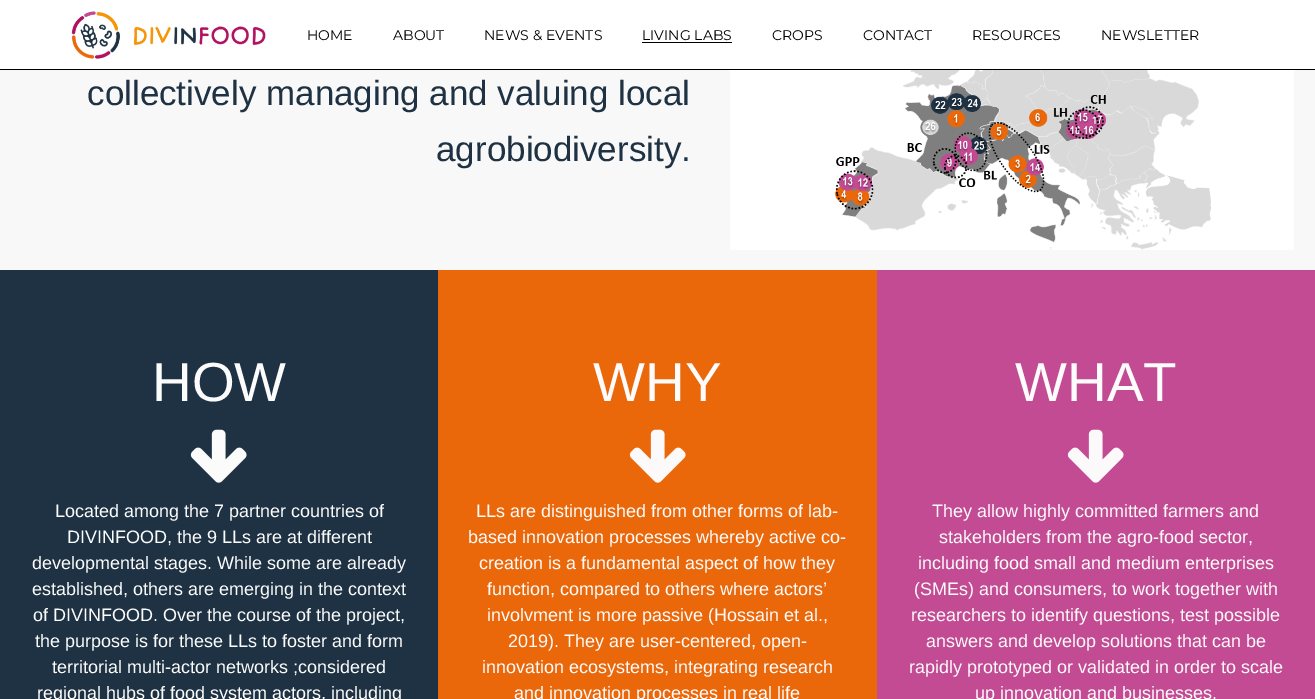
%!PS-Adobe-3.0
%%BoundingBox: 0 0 1315 699
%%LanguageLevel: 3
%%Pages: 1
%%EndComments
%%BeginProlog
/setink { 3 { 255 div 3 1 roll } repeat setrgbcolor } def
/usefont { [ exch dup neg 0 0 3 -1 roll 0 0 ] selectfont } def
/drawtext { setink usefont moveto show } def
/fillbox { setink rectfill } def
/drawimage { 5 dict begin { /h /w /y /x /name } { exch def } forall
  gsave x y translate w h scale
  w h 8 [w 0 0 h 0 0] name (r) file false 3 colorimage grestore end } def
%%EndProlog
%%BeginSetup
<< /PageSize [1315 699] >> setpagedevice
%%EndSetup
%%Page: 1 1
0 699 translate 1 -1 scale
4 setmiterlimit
0 0 1315 699 248 248 248 fillbox
0 0 1315 69 255 255 255 fillbox
(assets/img1.rgb) 71 11 195 48 drawimage
(HOME) 307 40 /Montserrat-Regular 14 0 0 0 drawtext
(ABOUT) 393 40 /Montserrat-Regular 14 0 0 0 drawtext
(NEWS & EVENTS) 484 40 /Montserrat-Regular 14 0 0 0 drawtext
(LIVING LABS) 642 40 /Montserrat-Regular 14 0 0 0 drawtext
642 42 90 1 0 0 0 fillbox
(CROPS) 772 40 /Montserrat-Regular 14 0 0 0 drawtext
(CONTACT) 863 40 /Montserrat-Regular 14 0 0 0 drawtext
(RESOURCES) 972 40 /Montserrat-Regular 14 0 0 0 drawtext
(NEWSLETTER) 1101 40 /Montserrat-Regular 14 0 0 0 drawtext
0 69 1315 1 0 0 0 fillbox
(collectively managing and valuing local) 87 105 /LiberationSans-Regular 35 31 50 67 drawtext
(agrobiodiversity.) 436 161 /LiberationSans-Regular 35 31 50 67 drawtext
(assets/img2.rgb) 730 70 564 180 drawimage
0 270 438 429 31 50 67 fillbox
(HOW) 152 401 /LiberationSans-Regular 55 252 252 252 drawtext
(assets/img3.rgb) 190 429 57 54 drawimage
(Located among the 7 partner countries of) 55 517 /LiberationSans-Regular 18 252 252 252 drawtext
(DIVINFOOD, the 9 LLs are at different) 67 543 /LiberationSans-Regular 18 252 252 252 drawtext
(developmental stages. While some are already) 32 569 /LiberationSans-Regular 18 252 252 252 drawtext
(established, others are emerging in the context) 32 595 /LiberationSans-Regular 18 252 252 252 drawtext
(of DIVINFOOD. Over the course of the project,) 33 621 /LiberationSans-Regular 18 252 252 252 drawtext
(the purpose is for these LLs to foster and form) 35 647 /LiberationSans-Regular 18 252 252 252 drawtext
(territorial multi-actor networks ;considered) 52 673 /LiberationSans-Regular 18 252 252 252 drawtext
(regional hubs of food system actors, including) 37 699 /LiberationSans-Regular 18 252 252 252 drawtext
438 270 439 429 235 104 10 fillbox
(WHY) 593 401 /LiberationSans-Regular 55 252 252 252 drawtext
(assets/img4.rgb) 629 429 57 54 drawimage
(LLs are distinguished from other forms of lab-) 476 517 /LiberationSans-Regular 18 252 252 252 drawtext
(based innovation processes whereby active co-) 468 543 /LiberationSans-Regular 18 252 252 252 drawtext
(creation is a fundamental aspect of how they) 479 569 /LiberationSans-Regular 18 252 252 252 drawtext
(function, compared to others where actors’) 487 595 /LiberationSans-Regular 18 252 252 252 drawtext
(involvment is more passive \(Hossain et al.,) 487 621 /LiberationSans-Regular 18 252 252 252 drawtext
(2019\). They are user-centered, open-) 508 647 /LiberationSans-Regular 18 252 252 252 drawtext
(innovation ecosystems, integrating research) 482 673 /LiberationSans-Regular 18 252 252 252 drawtext
(and innovation processes in real life) 514 699 /LiberationSans-Regular 18 252 252 252 drawtext
877 270 438 429 194 75 147 fillbox
(WHAT) 1015 401 /LiberationSans-Regular 55 252 252 252 drawtext
(assets/img5.rgb) 1067 429 57 54 drawimage
(They allow highly committed farmers and) 932 517 /LiberationSans-Regular 18 252 252 252 drawtext
(stakeholders from the agro-food sector,) 939 543 /LiberationSans-Regular 18 252 252 252 drawtext
(including food small and medium enterprises) 918 569 /LiberationSans-Regular 18 252 252 252 drawtext
(\(SMEs\) and consumers, to work together with) 914 595 /LiberationSans-Regular 18 252 252 252 drawtext
(researchers to identify questions, test possible) 911 621 /LiberationSans-Regular 18 252 252 252 drawtext
(answers and develop solutions that can be) 926 647 /LiberationSans-Regular 18 252 252 252 drawtext
(rapidly prototyped or validated in order to scale) 909 673 /LiberationSans-Regular 18 252 252 252 drawtext
(up innovation and businesses.) 975 699 /LiberationSans-Regular 18 252 252 252 drawtext
showpage
%%EOF
